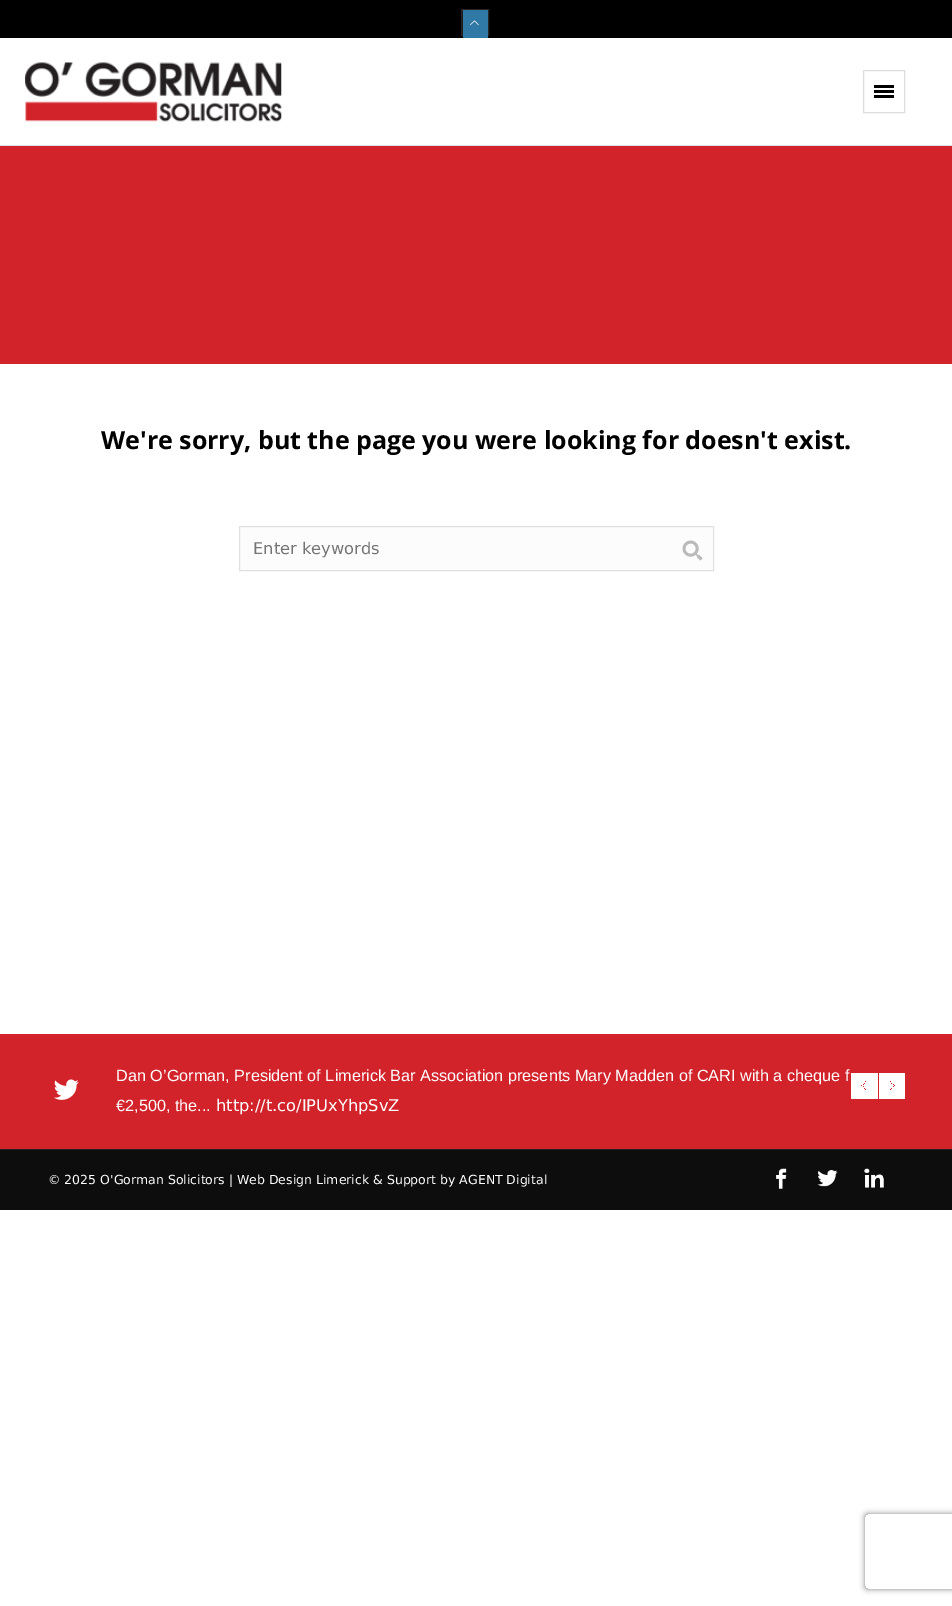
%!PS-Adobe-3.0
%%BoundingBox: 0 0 952 1606
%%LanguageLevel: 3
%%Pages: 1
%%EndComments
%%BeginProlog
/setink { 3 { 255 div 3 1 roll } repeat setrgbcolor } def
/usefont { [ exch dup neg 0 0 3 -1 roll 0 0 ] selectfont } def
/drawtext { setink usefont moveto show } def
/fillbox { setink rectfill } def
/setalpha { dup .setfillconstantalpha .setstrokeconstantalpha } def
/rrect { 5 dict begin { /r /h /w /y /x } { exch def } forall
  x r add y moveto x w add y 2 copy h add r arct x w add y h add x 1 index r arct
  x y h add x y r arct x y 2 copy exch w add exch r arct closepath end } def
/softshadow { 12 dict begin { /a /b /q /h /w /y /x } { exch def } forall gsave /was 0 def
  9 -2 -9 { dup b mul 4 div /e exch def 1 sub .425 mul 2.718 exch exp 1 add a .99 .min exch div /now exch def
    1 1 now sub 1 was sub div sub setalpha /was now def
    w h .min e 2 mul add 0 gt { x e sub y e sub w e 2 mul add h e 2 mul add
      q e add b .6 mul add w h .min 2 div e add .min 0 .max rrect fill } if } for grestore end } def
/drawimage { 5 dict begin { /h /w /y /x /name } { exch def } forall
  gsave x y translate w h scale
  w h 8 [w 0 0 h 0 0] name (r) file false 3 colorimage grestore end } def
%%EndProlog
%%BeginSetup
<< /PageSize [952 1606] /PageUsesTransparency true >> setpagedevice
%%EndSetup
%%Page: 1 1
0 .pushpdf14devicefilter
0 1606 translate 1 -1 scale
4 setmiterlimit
0 0 952 1606 255 255 255 fillbox
0 0 952 38 0 0 0 fillbox
462 10 1 25 26 26 26 fillbox
37 37 37 setink
461.5 9.5 27 26 rectstroke
463 10 25 28 48 121 166 fillbox
(assets/img1.rgb) 470 20 9 5 drawimage
0 145 952 1 217 227 232 fillbox
(assets/img2.rgb) 25 62 257 60 drawimage
221 221 221 setink
863.5 70.5 41 42 rectstroke
874 85 20 3 0 0 0 fillbox
874 90 20 3 0 0 0 fillbox
874 95 20 3 0 0 0 fillbox
0 146 952 218 210 35 42 fillbox
(We're sorry, but the page you were looking for doesn't exist.) 101 449 /OpenSans-Bold 25 0 0 0 drawtext
252 252 252 setink
239.5 526.5 moveto 713.5 526.5 lineto 713.5 570.5 lineto 239.5 570.5 lineto closepath gsave fill grestore
224 224 224 setink
stroke
(Enter keywords) 253 554 /DejaVuSans-Regular 16.25 117 117 117 drawtext
(assets/img3.rgb) 682 540 21 21 drawimage
0 1034 952 115 210 35 42 fillbox
(assets/img4.rgb) 54 1079 25 21 drawimage
(Dan O’Gorman, President of Limerick Bar Association presents Mary Madden of CARI with a cheque f) 116 1081 /LiberationSans-Regular 16.25 255 255 255 drawtext
(€2,500, the...) 116 1111 /LiberationSans-Regular 16.25 255 255 255 drawtext
(http://t.co/IPUxYhpSvZ) 216 1111 /DejaVuSans-Regular 16.25 255 255 255 drawtext
851 1073 27 26 255 255 255 fillbox
861 1085 1 1 210 35 42 fillbox
863 1084 1 1 210 35 42 fillbox
863 1086 1 1 210 35 42 fillbox
864 1083 1 1 210 35 42 fillbox
864 1088 1 1 210 35 42 fillbox
865 1081 1 1 210 35 42 fillbox
865 1089 1 1 210 35 42 fillbox
879 1073 26 26 255 255 255 fillbox
890 1081 1 1 210 35 42 fillbox
890 1089 1 1 210 35 42 fillbox
891 1083 1 1 210 35 42 fillbox
891 1088 1 1 210 35 42 fillbox
893 1084 1 1 210 35 42 fillbox
893 1086 1 1 210 35 42 fillbox
894 1085 1 1 210 35 42 fillbox
0 1150 952 60 13 13 13 fillbox
0 1149 952 1 32 32 32 fillbox
(© 2025 O'Gorman Solicitors | Web Design Limerick & Support by AGENT Digital) 48 1184 /DejaVuSans-Regular 12.5 255 255 255 drawtext
(assets/img5.rgb) 776 1168 11 21 drawimage
(assets/img6.rgb) 817 1170 21 17 drawimage
(assets/img7.rgb) 864 1168 20 20 drawimage
gsave
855 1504 moveto 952 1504 lineto 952 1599 lineto 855 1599 lineto closepath 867.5 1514 moveto 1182.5 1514 lineto 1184 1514 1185 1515 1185 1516.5 curveto 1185 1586.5 lineto 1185 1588 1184 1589 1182.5 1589 curveto 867.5 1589 lineto 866 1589 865 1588 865 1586.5 curveto 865 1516.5 lineto 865 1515 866 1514 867.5 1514 curveto closepath eoclip newpath
128 128 128 setink
865 1514 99 75 2.5 3 1 softshadow
grestore
.poppdf14devicefilter showpage
%%EOF
